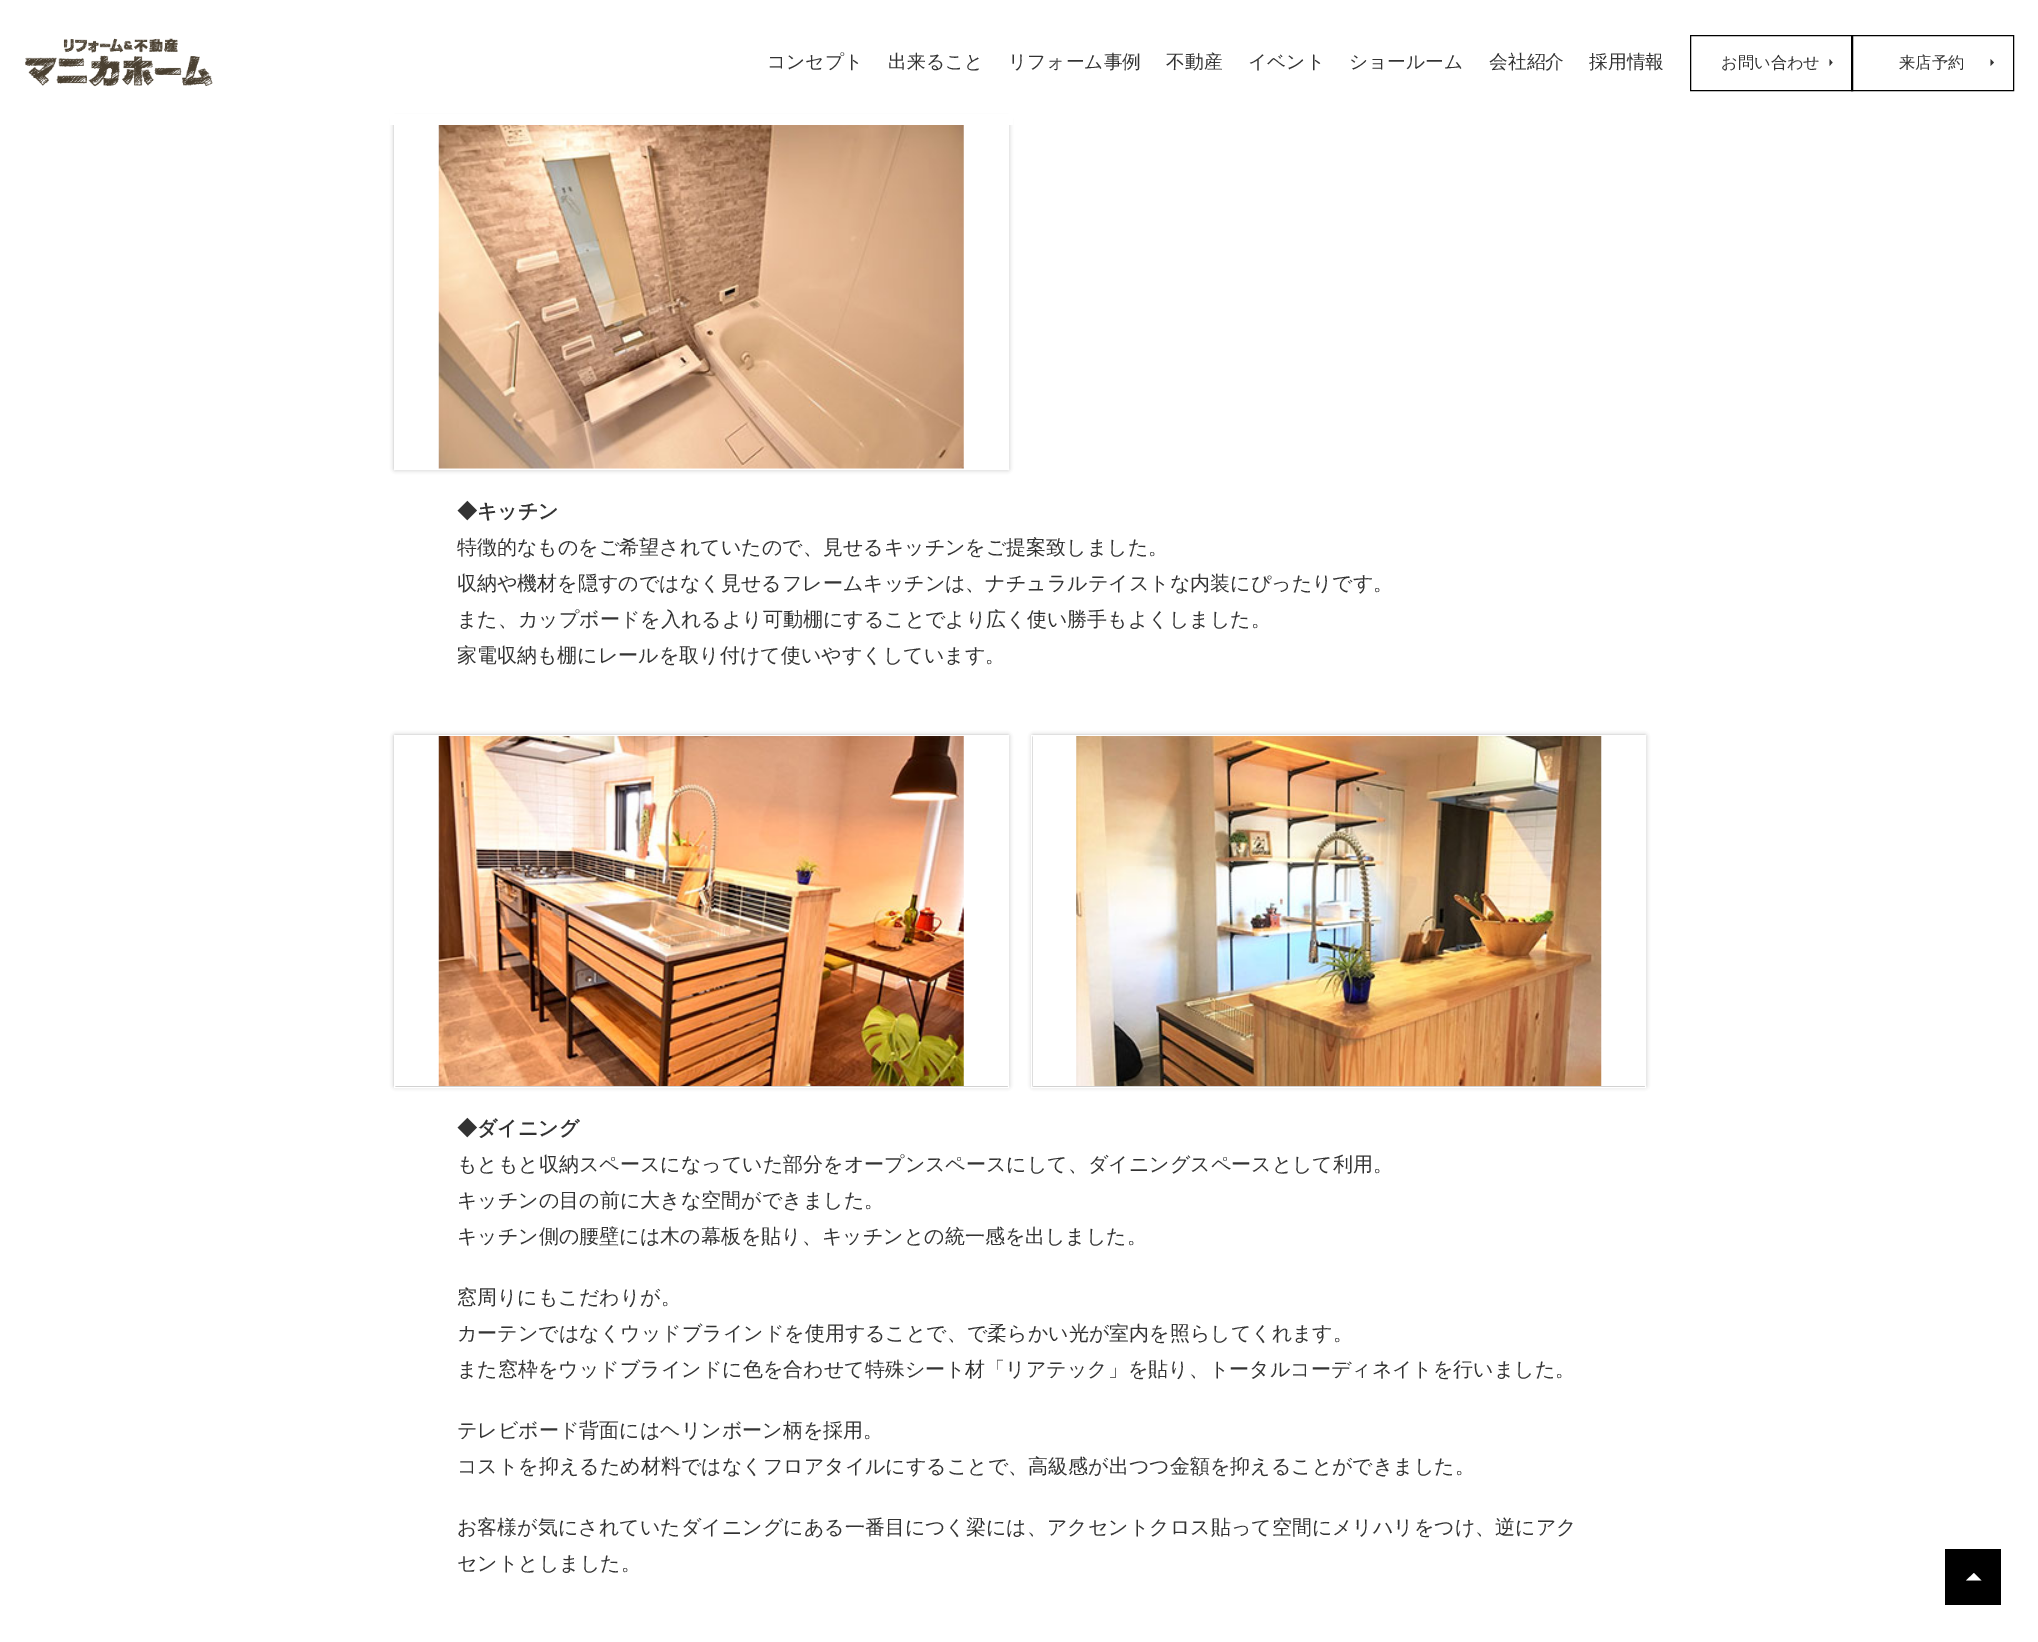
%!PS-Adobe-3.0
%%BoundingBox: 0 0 2038 1642
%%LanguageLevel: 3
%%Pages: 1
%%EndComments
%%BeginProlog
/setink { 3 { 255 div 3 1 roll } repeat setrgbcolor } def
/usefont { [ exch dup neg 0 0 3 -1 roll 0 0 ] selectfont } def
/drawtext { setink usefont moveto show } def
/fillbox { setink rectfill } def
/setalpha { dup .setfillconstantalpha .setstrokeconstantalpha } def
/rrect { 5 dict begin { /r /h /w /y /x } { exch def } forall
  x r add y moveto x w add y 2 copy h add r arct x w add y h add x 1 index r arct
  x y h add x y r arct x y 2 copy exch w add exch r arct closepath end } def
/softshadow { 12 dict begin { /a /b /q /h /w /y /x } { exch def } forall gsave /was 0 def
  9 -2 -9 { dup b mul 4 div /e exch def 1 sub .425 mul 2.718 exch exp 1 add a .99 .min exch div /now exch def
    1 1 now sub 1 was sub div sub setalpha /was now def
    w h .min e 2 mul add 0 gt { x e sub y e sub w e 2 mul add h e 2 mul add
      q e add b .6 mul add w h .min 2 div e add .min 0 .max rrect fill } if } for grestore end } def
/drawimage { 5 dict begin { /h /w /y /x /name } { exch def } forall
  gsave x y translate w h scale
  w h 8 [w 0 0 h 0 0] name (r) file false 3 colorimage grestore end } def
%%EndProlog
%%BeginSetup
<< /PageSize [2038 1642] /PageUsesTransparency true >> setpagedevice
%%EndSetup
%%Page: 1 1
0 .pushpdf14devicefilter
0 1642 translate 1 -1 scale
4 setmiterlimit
0 0 2038 1642 255 255 255 fillbox
gsave
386 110 moveto 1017 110 lineto 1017 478 lineto 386 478 lineto closepath 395 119 moveto 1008 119 lineto 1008 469 lineto 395 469 lineto closepath eoclip newpath
0 0 0 setink
395 119 613 350 0 2.5 0.4 softshadow
grestore
394.5 118.5 614 351 rectstroke
390 114 623 11 255 255 255 fillbox
(assets/img1.rgb) 25 38 188 49 drawimage
(コンセプト) 767 68 /WenQuanYiZenHei-Medium 18.75 51 51 51 drawtext
(出来ること) 888 68 /WenQuanYiZenHei-Medium 18.75 51 51 51 drawtext
(リフォーム事例) 1008 68 /WenQuanYiZenHei-Medium 18.75 51 51 51 drawtext
(不動産) 1166 68 /WenQuanYiZenHei-Medium 18.75 51 51 51 drawtext
(イベント) 1248 68 /WenQuanYiZenHei-Medium 18.75 51 51 51 drawtext
(ショールーム) 1349 68 /WenQuanYiZenHei-Medium 18.75 51 51 51 drawtext
(会社紹介) 1489 68 /WenQuanYiZenHei-Medium 18.75 51 51 51 drawtext
(採用情報) 1589 68 /WenQuanYiZenHei-Medium 18.75 51 51 51 drawtext
0 0 0 setink
1690.5 35.5 162 55 rectstroke
(お問い合わせ) 1721 68 /WenQuanYiZenHei-Medium 16.25 51 51 51 drawtext
1829.5 66 moveto 1829.5 59 lineto 1832.5 62.5 lineto closepath fill
0 0 0 setink
1851.5 35.5 162 55 rectstroke
(来店予約) 1899 68 /WenQuanYiZenHei-Medium 16.25 51 51 51 drawtext
1990.5 66 moveto 1990.5 59 lineto 1994 62.5 lineto closepath fill
0.8 setalpha
395 125 613 344 255 255 255 fillbox
1 setalpha
(assets/img2.rgb) 438 125 526 344 drawimage
(◆キッチン) 457 518 /WenQuanYiZenHei-Bold 20 51 51 51 drawtext
(特徴的なものをご希望されていたので、見せるキッチンをご提案致しました。) 457 554 /WenQuanYiZenHei-Medium 20 51 51 51 drawtext
(収納や機材を隠すのではなく見せるフレームキッチンは、ナチュラルテイストな内装にぴったりです。) 457 590 /WenQuanYiZenHei-Medium 20 51 51 51 drawtext
(また、カップボードを入れるより可動棚にすることでより広く使い勝手もよくしました。) 457 626 /WenQuanYiZenHei-Medium 20 51 51 51 drawtext
(家電収納も棚にレールを取り付けて使いやすくしています。) 457 662 /WenQuanYiZenHei-Medium 20 51 51 51 drawtext
gsave
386 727 moveto 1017 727 lineto 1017 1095 lineto 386 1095 lineto closepath 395 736 moveto 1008 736 lineto 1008 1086 lineto 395 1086 lineto closepath eoclip newpath
0 0 0 setink
395 736 613 350 0 2.5 0.4 softshadow
grestore
255 255 255 setink
394.5 735.5 614 352 rectstroke
0.8 setalpha
395 736 613 350 255 255 255 fillbox
1 setalpha
(assets/img3.rgb) 438 736 526 350 drawimage
gsave
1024 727 moveto 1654 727 lineto 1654 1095 lineto 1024 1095 lineto closepath 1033 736 moveto 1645 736 lineto 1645 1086 lineto 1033 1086 lineto closepath eoclip newpath
0 0 0 setink
1033 736 612 350 0 2.5 0.4 softshadow
grestore
1031.5 735.5 614 352 rectstroke
0.8 setalpha
1033 736 612 1 255 255 255 fillbox
1 setalpha
(assets/img4.rgb) 1076 736 526 350 drawimage
(◆ダイニング) 457 1135 /WenQuanYiZenHei-Bold 20 51 51 51 drawtext
(もともと収納スペースになっていた部分をオープンスペースにして、ダイニングスペースとして利用。) 457 1171 /WenQuanYiZenHei-Medium 20 51 51 51 drawtext
(キッチンの目の前に大きな空間ができました。) 457 1207 /WenQuanYiZenHei-Medium 20 51 51 51 drawtext
(キッチン側の腰壁には木の幕板を貼り、キッチンとの統一感を出しました。) 457 1243 /WenQuanYiZenHei-Medium 20 51 51 51 drawtext
(窓周りにもこだわりが。) 457 1304 /WenQuanYiZenHei-Medium 20 51 51 51 drawtext
(カーテンではなくウッドブラインドを使用することで、で柔らかい光が室内を照らしてくれます。) 457 1340 /WenQuanYiZenHei-Medium 20 51 51 51 drawtext
(また窓枠をウッドブラインドに色を合わせて特殊シート材「リアテック」を貼り、トータルコーディネイトを行いました。) 457 1376 /WenQuanYiZenHei-Medium 20 51 51 51 drawtext
(テレビボード背面にはヘリンボーン柄を採用。) 457 1437 /WenQuanYiZenHei-Medium 20 51 51 51 drawtext
(コストを抑えるため材料ではなくフロアタイルにすることで、高級感が出つつ金額を抑えることができました。) 457 1473 /WenQuanYiZenHei-Medium 20 51 51 51 drawtext
(お客様が気にされていたダイニングにある一番目につく梁には、アクセントクロス貼って空間にメリハリをつけ、逆にアク) 457 1534 /WenQuanYiZenHei-Medium 20 51 51 51 drawtext
(セントとしました。) 457 1570 /WenQuanYiZenHei-Medium 20 51 51 51 drawtext
1945 1549 56 56 0 0 0 fillbox
255 255 255 setink
1966 1580.5 moveto 1974 1573 lineto 1981.5 1580.5 lineto closepath fill
.poppdf14devicefilter showpage
%%EOF
